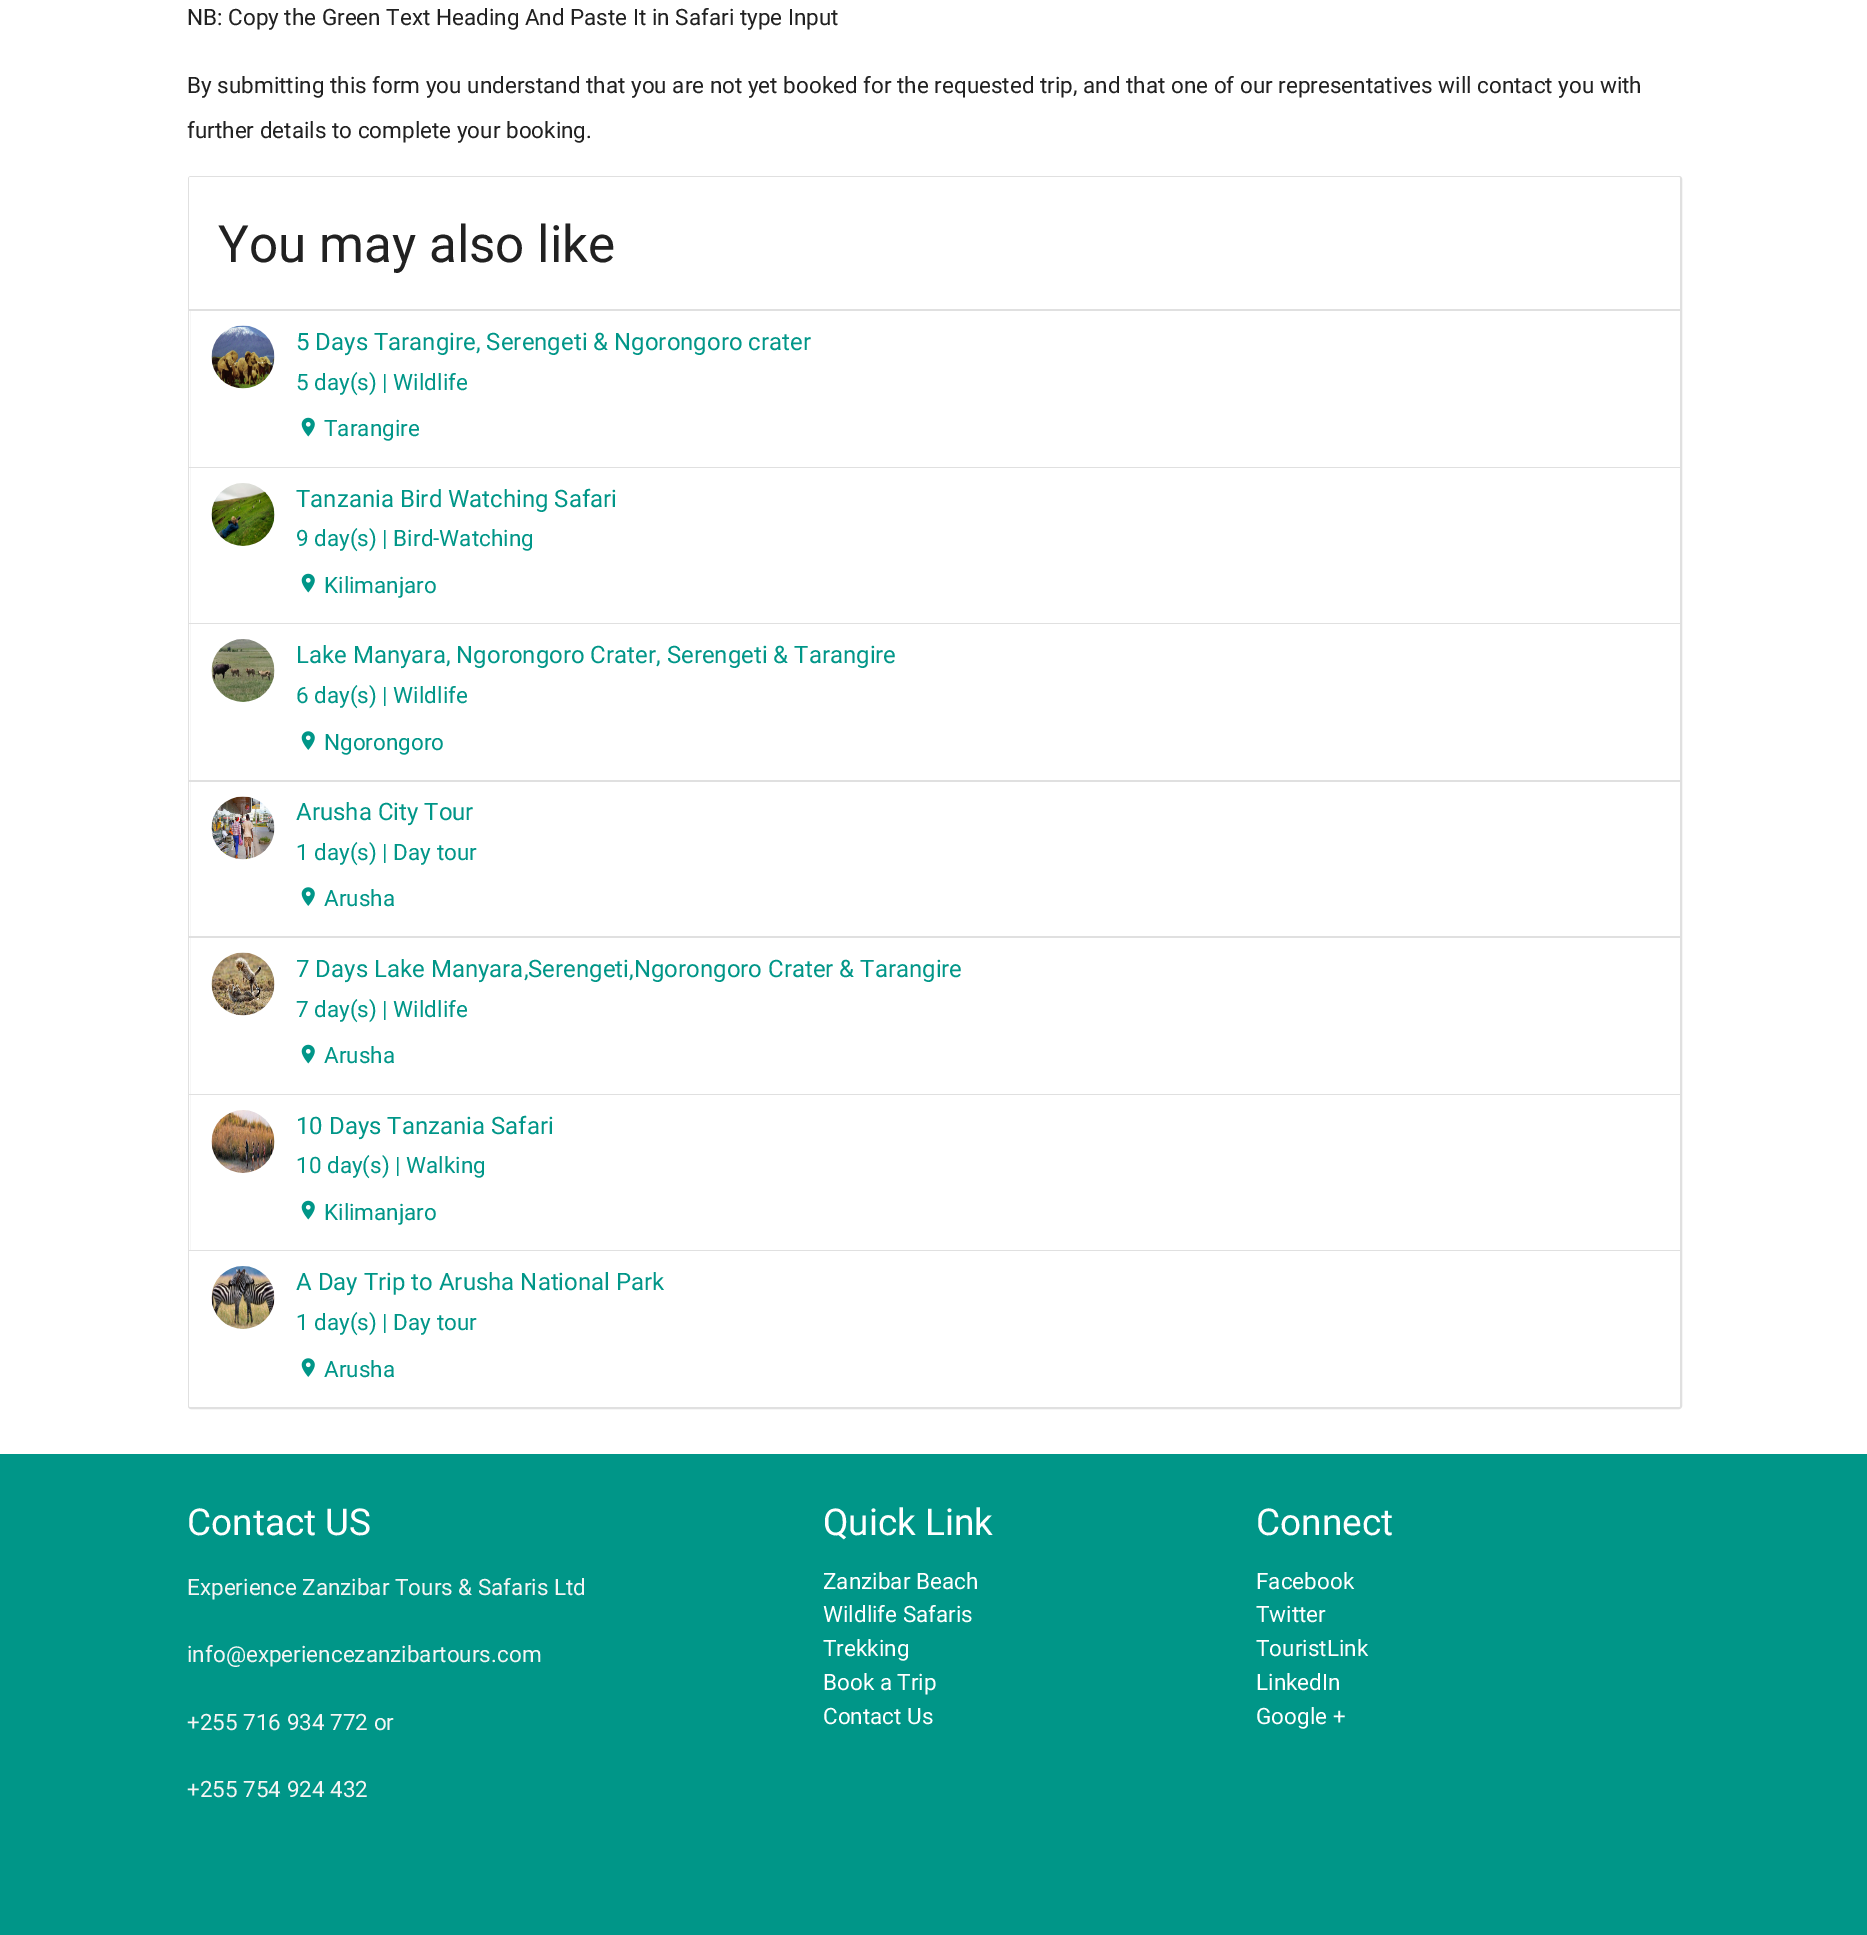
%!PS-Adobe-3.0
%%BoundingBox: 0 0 1867 1935
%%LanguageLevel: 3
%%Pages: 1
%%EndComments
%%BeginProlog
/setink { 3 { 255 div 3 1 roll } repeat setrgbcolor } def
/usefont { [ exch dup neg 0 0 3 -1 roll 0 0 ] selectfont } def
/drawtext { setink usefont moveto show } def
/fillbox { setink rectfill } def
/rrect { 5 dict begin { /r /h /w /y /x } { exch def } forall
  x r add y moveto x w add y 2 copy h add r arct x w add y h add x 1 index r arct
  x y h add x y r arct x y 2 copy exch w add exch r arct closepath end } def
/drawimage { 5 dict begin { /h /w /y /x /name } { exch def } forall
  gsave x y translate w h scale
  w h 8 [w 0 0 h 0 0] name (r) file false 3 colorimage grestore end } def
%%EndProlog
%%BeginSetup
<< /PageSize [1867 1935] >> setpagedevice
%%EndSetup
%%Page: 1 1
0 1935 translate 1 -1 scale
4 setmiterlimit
0 0 1867 1935 255 255 255 fillbox
(NB: Copy the Green Text Heading And Paste It in Safari type Input) 187 25 /Roboto-Regular 22.5 33 33 33 drawtext
(By submitting this form you understand that you are not yet booked for the requested trip, and that one of our representatives will contact you with) 187 93 /Roboto-Regular 22.5 33 33 33 drawtext
(further details to complete your booking.) 187 138 /Roboto-Regular 22.5 33 33 33 drawtext
224 224 224 setink
2 setlinewidth
189 177 1492 1231 2 rrect stroke
255 255 255 setink
190.5 177 moveto 1678.5 177 lineto 1679.5 177 1680 177.5 1680 178.5 curveto 1680 311 lineto 189 311 lineto 189 178.5 lineto 189 177.5 189.5 177 190.5 177 curveto closepath fill
189 309 1491 2 224 224 224 fillbox
(You may also like) 218 262 /Roboto-Regular 51.25 33 33 33 drawtext
189 311 1 156 255 255 255 fillbox
189 467 1491 1 224 224 224 fillbox
(assets/img1.rgb) 211 325 64 64 drawimage
(5 Days Tarangire, Serengeti & Ngorongoro crater) 296 350 /Roboto-Regular 24 0 150 136 drawtext
(5 day\(s\) | Wildlife) 296 390 /Roboto-Regular 22.5 0 150 136 drawtext
(assets/img2.rgb) 301 417 14 20 drawimage
(Tarangire) 324 436 /Roboto-Regular 22.5 0 150 136 drawtext
189 468 1 155 255 255 255 fillbox
189 623 1491 1 224 224 224 fillbox
(assets/img3.rgb) 211 483 64 63 drawimage
(Tanzania Bird Watching Safari) 296 507 /Roboto-Regular 24 0 150 136 drawtext
(9 day\(s\) | Bird-Watching) 296 546 /Roboto-Regular 22.5 0 150 136 drawtext
(assets/img2.rgb) 301 573 14 20 drawimage
(Kilimanjaro) 324 593 /Roboto-Regular 22.5 0 150 136 drawtext
189 624 1 156 255 255 255 fillbox
189 780 1491 2 224 224 224 fillbox
(assets/img4.rgb) 211 639 64 63 drawimage
(Lake Manyara, Ngorongoro Crater, Serengeti & Tarangire) 296 663 /Roboto-Regular 24 0 150 136 drawtext
(6 day\(s\) | Wildlife) 296 703 /Roboto-Regular 22.5 0 150 136 drawtext
(assets/img5.rgb) 301 731 14 19 drawimage
(Ngorongoro) 324 750 /Roboto-Regular 22.5 0 150 136 drawtext
189 782 1 154 255 255 255 fillbox
189 936 1491 2 224 224 224 fillbox
(assets/img6.rgb) 211 796 64 64 drawimage
(Arusha City Tour) 296 820 /Roboto-Regular 24 0 150 136 drawtext
(1 day\(s\) | Day tour) 296 860 /Roboto-Regular 22.5 0 150 136 drawtext
(assets/img5.rgb) 301 887 14 19 drawimage
(Arusha) 324 906 /Roboto-Regular 22.5 0 150 136 drawtext
189 938 1 156 255 255 255 fillbox
189 1094 1491 1 224 224 224 fillbox
(assets/img7.rgb) 211 952 64 64 drawimage
(7 Days Lake Manyara,Serengeti,Ngorongoro Crater & Tarangire) 296 977 /Roboto-Regular 24 0 150 136 drawtext
(7 day\(s\) | Wildlife) 296 1017 /Roboto-Regular 22.5 0 150 136 drawtext
(assets/img2.rgb) 301 1044 14 20 drawimage
(Arusha) 324 1063 /Roboto-Regular 22.5 0 150 136 drawtext
189 1095 1 155 255 255 255 fillbox
189 1250 1491 1 224 224 224 fillbox
(assets/img8.rgb) 211 1110 64 63 drawimage
(10 Days Tanzania Safari) 296 1134 /Roboto-Regular 24 0 150 136 drawtext
(10 day\(s\) | Walking) 296 1173 /Roboto-Regular 22.5 0 150 136 drawtext
(assets/img2.rgb) 301 1200 14 20 drawimage
(Kilimanjaro) 324 1220 /Roboto-Regular 22.5 0 150 136 drawtext
255 255 255 setink
189 1251 moveto 1680 1251 lineto 1680 1405.5 lineto 1680 1406.5 1679.5 1407 1678.5 1407 curveto 190.5 1407 lineto 189.5 1407 189 1406.5 189 1405.5 curveto closepath fill
(assets/img9.rgb) 211 1266 64 63 drawimage
(A Day Trip to Arusha National Park) 296 1290 /Roboto-Regular 24 0 150 136 drawtext
(1 day\(s\) | Day tour) 296 1330 /Roboto-Regular 22.5 0 150 136 drawtext
(assets/img5.rgb) 301 1358 14 19 drawimage
(Arusha) 324 1377 /Roboto-Regular 22.5 0 150 136 drawtext
0 1454 1867 481 0 150 136 fillbox
(Contact US) 187 1535 /Roboto-Regular 37 255 255 255 drawtext
(Experience Zanzibar Tours & Safaris Ltd) 187 1595 /Roboto-Regular 22.5 245 245 245 drawtext
(info@experiencezanzibartours.com) 187 1662 /Roboto-Regular 22.5 245 245 245 drawtext
(+255 716 934 772 or) 187 1730 /Roboto-Regular 22.5 245 245 245 drawtext
(+255 754 924 432) 187 1797 /Roboto-Regular 22.5 245 245 245 drawtext
(Quick Link) 823 1535 /Roboto-Regular 37 255 255 255 drawtext
(Zanzibar Beach) 823 1589 /Roboto-Regular 22.5 255 255 255 drawtext
(Wildlife Safaris) 823 1622 /Roboto-Regular 22.5 255 255 255 drawtext
(Trekking) 823 1656 /Roboto-Regular 22.5 255 255 255 drawtext
(Book a Trip) 823 1690 /Roboto-Regular 22.5 255 255 255 drawtext
(Contact Us) 823 1724 /Roboto-Regular 22.5 255 255 255 drawtext
(Connect) 1256 1535 /Roboto-Regular 37 255 255 255 drawtext
(Facebook) 1256 1589 /Roboto-Regular 22.5 255 255 255 drawtext
(Twitter) 1256 1622 /Roboto-Regular 22.5 255 255 255 drawtext
(TouristLink) 1256 1656 /Roboto-Regular 22.5 255 255 255 drawtext
(LinkedIn) 1256 1690 /Roboto-Regular 22.5 255 255 255 drawtext
(Google +) 1256 1724 /Roboto-Regular 22.5 255 255 255 drawtext
showpage
%%EOF
